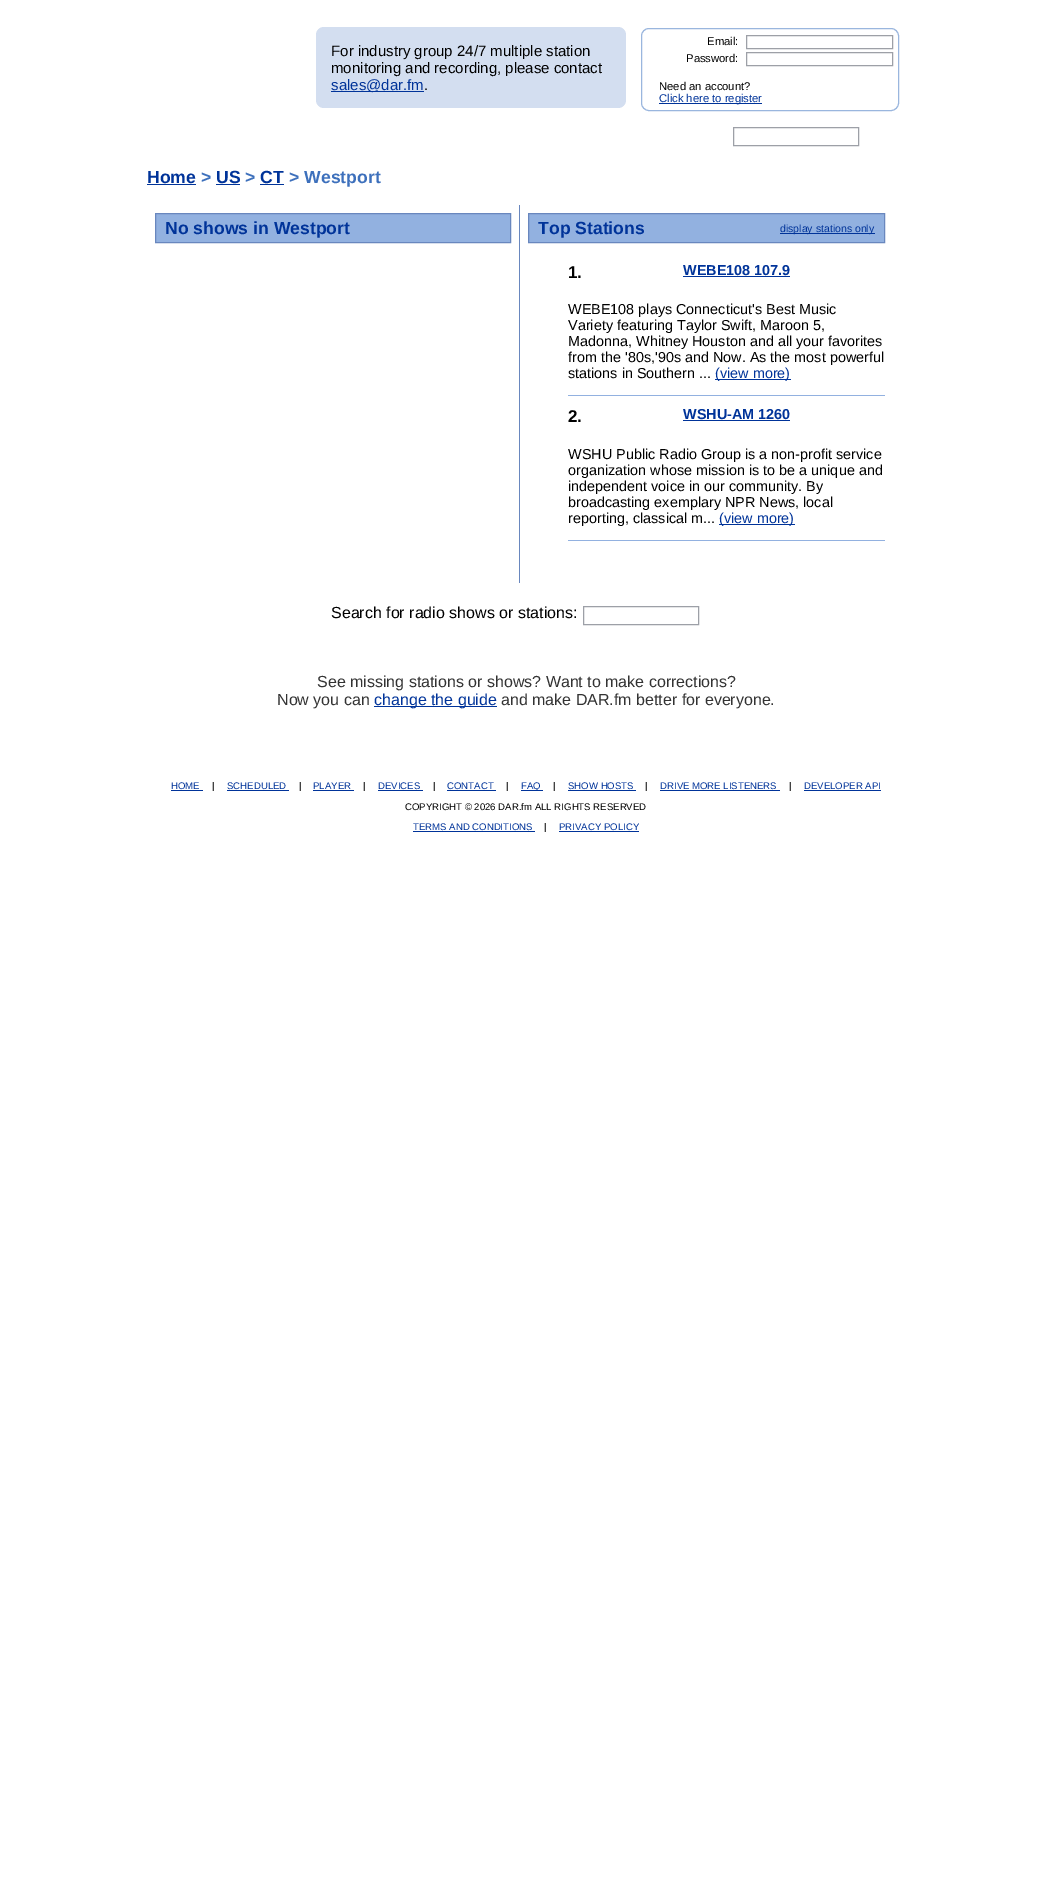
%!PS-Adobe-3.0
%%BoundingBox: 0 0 1052 1903
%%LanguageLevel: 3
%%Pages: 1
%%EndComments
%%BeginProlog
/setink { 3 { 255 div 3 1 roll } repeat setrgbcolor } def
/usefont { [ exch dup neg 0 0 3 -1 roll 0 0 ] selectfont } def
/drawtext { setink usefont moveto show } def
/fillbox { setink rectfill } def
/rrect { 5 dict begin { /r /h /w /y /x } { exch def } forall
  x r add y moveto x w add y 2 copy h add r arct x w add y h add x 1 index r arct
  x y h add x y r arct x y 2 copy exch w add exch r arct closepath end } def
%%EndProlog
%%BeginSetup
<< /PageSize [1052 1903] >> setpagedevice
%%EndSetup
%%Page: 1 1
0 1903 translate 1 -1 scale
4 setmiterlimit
0 0 1052 1903 255 255 255 fillbox
211 222 240 setink
316 27 310 81 8 rrect fill
(For industry group 24/7 multiple station) 331 56 /LiberationSans-Regular 15 0 0 0 drawtext
(monitoring and recording, please contact) 331 73 /LiberationSans-Regular 15 0 0 0 drawtext
331 91 93 1 0 51 153 fillbox
(sales@dar.fm) 331 90 /LiberationSans-Regular 15 0 51 153 drawtext
(.) 424 90 /LiberationSans-Regular 15 0 0 0 drawtext
154 182 222 setink
641.5 28.5 257 82 7.5 rrect stroke
(Email:) 707 45 /LiberationSans-Regular 11.25 0 0 0 drawtext
157 160 167 setink
746.5 35.5 146 13 rectstroke
(Password:) 686 62 /LiberationSans-Regular 11.25 0 0 0 drawtext
157 160 167 setink
746.5 52.5 146 13 rectstroke
(Need an account?) 659 90 /LiberationSans-Regular 11.25 0 0 0 drawtext
659 103 103 1 0 51 153 fillbox
(Click here to register) 659 102 /LiberationSans-Regular 11.25 0 51 153 drawtext
157 160 167 setink
733.5 127.5 125 18 rectstroke
(Home) 147 183 /LiberationSans-Bold 17.6 0 51 153 drawtext
147 184 49 1 0 51 153 fillbox
(>) 201 183 /LiberationSans-Bold 17.6 61 112 188 drawtext
(US) 216 183 /LiberationSans-Bold 17.6 0 51 153 drawtext
216 184 24 1 0 51 153 fillbox
(>) 245 183 /LiberationSans-Bold 17.6 61 112 188 drawtext
(CT) 260 183 /LiberationSans-Bold 17.6 0 51 153 drawtext
260 184 24 1 0 51 153 fillbox
(> Westport) 289 183 /LiberationSans-Bold 17.6 61 112 188 drawtext
146 177 224 setink
155.5 213.5 moveto 510.5 213.5 lineto 510.5 242.5 lineto 155.5 242.5 lineto closepath gsave fill grestore
105 135 190 setink
stroke
(No shows in Westport) 165 234 /LiberationSans-Bold 17.6 0 51 153 drawtext
519 205 1 378 105 135 190 fillbox
146 177 224 setink
528.5 213.5 moveto 884.5 213.5 lineto 884.5 242.5 lineto 528.5 242.5 lineto closepath gsave fill grestore
105 135 190 setink
stroke
(Top Stations) 538 234 /LiberationSans-Bold 17.6 0 51 153 drawtext
780 233 95 1 0 51 153 fillbox
(display stations only) 780 232 /LiberationSans-Regular 10.5 0 51 153 drawtext
568 395 317 1 146 177 224 fillbox
(1.) 568 278 /LiberationSans-Bold 17 0 0 0 drawtext
(WEBE108 107.9) 683 275 /LiberationSans-Bold 14.4 0 51 153 drawtext
683 276 107 1 0 51 153 fillbox
(WEBE108 plays Connecticut's Best Music) 568 314 /LiberationSans-Regular 14.4 0 0 0 drawtext
(Variety featuring Taylor Swift, Maroon 5,) 568 330 /LiberationSans-Regular 14.4 0 0 0 drawtext
(Madonna, Whitney Houston and all your favorites) 568 346 /LiberationSans-Regular 14.4 0 0 0 drawtext
(from the '80s,'90s and Now. As the most powerful) 568 362 /LiberationSans-Regular 14.4 0 0 0 drawtext
(stations in Southern ...) 568 378 /LiberationSans-Regular 14.4 0 0 0 drawtext
715 379 76 1 0 51 153 fillbox
(\(view more\)) 715 378 /LiberationSans-Regular 14.4 0 51 153 drawtext
568 540 317 1 146 177 224 fillbox
(2.) 568 422 /LiberationSans-Bold 17 0 0 0 drawtext
(WSHU-AM 1260) 683 419 /LiberationSans-Bold 14.4 0 51 153 drawtext
683 420 107 1 0 51 153 fillbox
(WSHU Public Radio Group is a non-profit service) 568 459 /LiberationSans-Regular 14.4 0 0 0 drawtext
(organization whose mission is to be a unique and) 568 475 /LiberationSans-Regular 14.4 0 0 0 drawtext
(independent voice in our community. By) 568 491 /LiberationSans-Regular 14.4 0 0 0 drawtext
(broadcasting exemplary NPR News, local) 568 507 /LiberationSans-Regular 14.4 0 0 0 drawtext
(reporting, classical m...) 568 523 /LiberationSans-Regular 14.4 0 0 0 drawtext
719 524 76 1 0 51 153 fillbox
(\(view more\)) 719 523 /LiberationSans-Regular 14.4 0 51 153 drawtext
(Search for radio shows or stations:) 331 618 /LiberationSans-Regular 16 0 0 0 drawtext
157 160 167 setink
583.5 606.5 115 18 rectstroke
(See missing stations or shows? Want to make corrections?) 317 687 /LiberationSans-Regular 16 51 51 51 drawtext
(Now you can) 277 705 /LiberationSans-Regular 16 51 51 51 drawtext
374 706 123 1 0 51 153 fillbox
(change the guide) 374 705 /LiberationSans-Regular 16 0 51 153 drawtext
(and make DAR.fm better for everyone.) 501 705 /LiberationSans-Regular 16 51 51 51 drawtext
(HOME) 171 789 /LiberationSans-Regular 9.6 0 51 153 drawtext
171 790 32 1 0 51 153 fillbox
(|) 212 789 /LiberationSans-Regular 9.6 0 0 0 drawtext
(SCHEDULED) 227 789 /LiberationSans-Regular 9.6 0 51 153 drawtext
227 790 62 1 0 51 153 fillbox
(|) 299 789 /LiberationSans-Regular 9.6 0 0 0 drawtext
(PLAYER) 313 789 /LiberationSans-Regular 9.6 0 51 153 drawtext
313 790 41 1 0 51 153 fillbox
(|) 363 789 /LiberationSans-Regular 9.6 0 0 0 drawtext
(DEVICES) 378 789 /LiberationSans-Regular 9.6 0 51 153 drawtext
378 790 45 1 0 51 153 fillbox
(|) 433 789 /LiberationSans-Regular 9.6 0 0 0 drawtext
(CONTACT) 447 789 /LiberationSans-Regular 9.6 0 51 153 drawtext
447 790 49 1 0 51 153 fillbox
(|) 506 789 /LiberationSans-Regular 9.6 0 0 0 drawtext
521 790 22 1 0 51 153 fillbox
(FAQ) 521 789 /LiberationSans-Regular 9.6 0 51 153 drawtext
(|) 553 789 /LiberationSans-Regular 9.6 0 0 0 drawtext
(SHOW HOSTS) 568 789 /LiberationSans-Regular 9.6 0 51 153 drawtext
568 790 68 1 0 51 153 fillbox
(|) 645 789 /LiberationSans-Regular 9.6 0 0 0 drawtext
(DRIVE MORE LISTENERS) 660 789 /LiberationSans-Regular 9.6 0 51 153 drawtext
660 790 120 1 0 51 153 fillbox
(|) 789 789 /LiberationSans-Regular 9.6 0 0 0 drawtext
(DEVELOPER API) 804 789 /LiberationSans-Regular 9.6 0 51 153 drawtext
804 790 77 1 0 51 153 fillbox
(COPYRIGHT © 2026 DAR.fm ALL RIGHTS RESERVED) 405 810 /LiberationSans-Regular 9.6 0 0 0 drawtext
(TERMS AND CONDITIONS) 413 830 /LiberationSans-Regular 9.6 0 51 153 drawtext
413 831 122 1 0 51 153 fillbox
(|) 544 830 /LiberationSans-Regular 9.6 0 0 0 drawtext
(PRIVACY POLICY) 559 830 /LiberationSans-Regular 9.6 0 51 153 drawtext
559 831 80 1 0 51 153 fillbox
showpage
%%EOF
